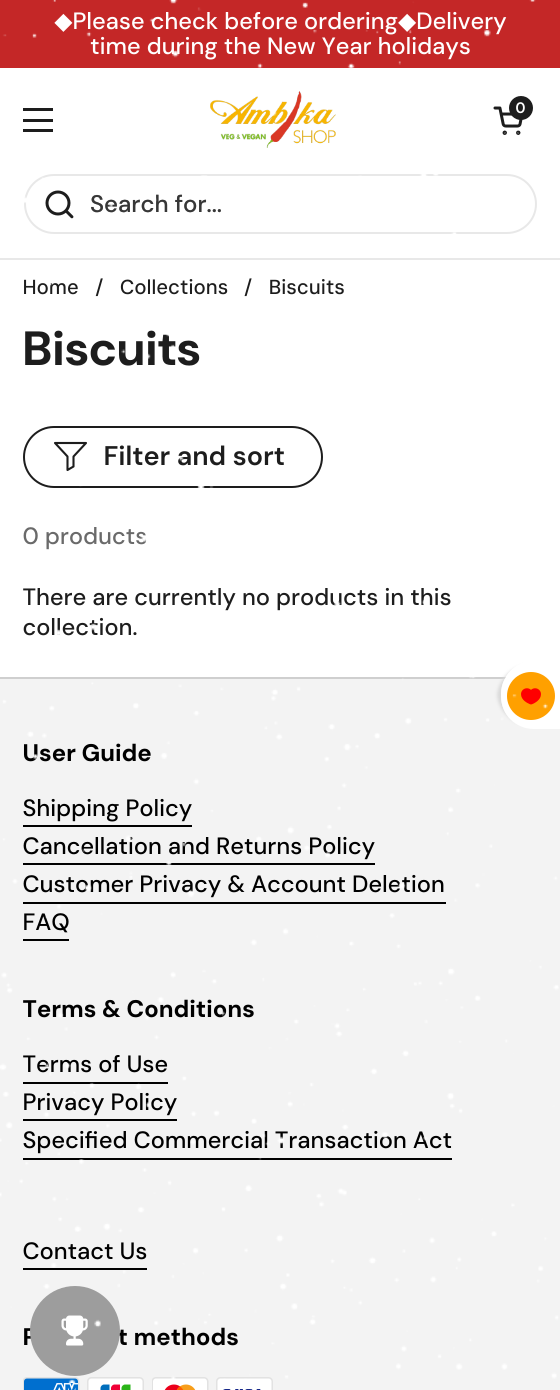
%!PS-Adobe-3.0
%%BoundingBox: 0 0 560 1390
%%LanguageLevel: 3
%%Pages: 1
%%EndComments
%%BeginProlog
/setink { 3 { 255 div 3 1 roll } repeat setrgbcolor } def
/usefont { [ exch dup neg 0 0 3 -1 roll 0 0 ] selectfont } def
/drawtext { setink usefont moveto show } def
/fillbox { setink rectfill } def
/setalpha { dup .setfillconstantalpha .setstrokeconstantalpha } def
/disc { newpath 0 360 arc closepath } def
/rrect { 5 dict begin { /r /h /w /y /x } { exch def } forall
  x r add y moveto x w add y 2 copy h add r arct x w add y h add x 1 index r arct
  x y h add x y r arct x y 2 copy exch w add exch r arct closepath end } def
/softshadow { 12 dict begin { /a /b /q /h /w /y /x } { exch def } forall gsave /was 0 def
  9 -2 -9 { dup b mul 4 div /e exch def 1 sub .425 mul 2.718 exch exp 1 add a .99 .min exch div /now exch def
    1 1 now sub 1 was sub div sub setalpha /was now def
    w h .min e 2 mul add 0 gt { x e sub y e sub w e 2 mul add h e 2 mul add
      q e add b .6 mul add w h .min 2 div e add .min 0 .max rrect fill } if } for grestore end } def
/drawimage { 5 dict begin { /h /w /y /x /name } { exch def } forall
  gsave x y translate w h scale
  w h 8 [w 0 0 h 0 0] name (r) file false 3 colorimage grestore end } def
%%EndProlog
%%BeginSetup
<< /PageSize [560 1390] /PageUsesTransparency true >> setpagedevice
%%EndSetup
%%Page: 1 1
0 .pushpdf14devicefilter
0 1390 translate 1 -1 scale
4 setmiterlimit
0 0 560 1390 255 255 255 fillbox
0 0 560 68 196 39 39 fillbox
(◆) 54 29 /DejaVuSans-Regular 23.6 255 255 255 drawtext
(Please check before ordering) 72 29 /DMSans-Medium 23.6 255 255 255 drawtext
(◆) 398 29 /DejaVuSans-Regular 23.6 255 255 255 drawtext
(Delivery) 416 29 /DMSans-Medium 23.6 255 255 255 drawtext
(time during the New Year holidays) 90 54 /DMSans-Medium 23.6 255 255 255 drawtext
23 108 30 3 29 29 29 fillbox
23 119 30 3 29 29 29 fillbox
23 129 30 3 29 29 29 fillbox
(assets/img2.rgb) 210 91 126 57 drawimage
(assets/img3.rgb) 493 106 30 29 drawimage
521 108 12 disc fill
(0) 515 113 /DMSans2-SemiBold 15 255 255 255 drawtext
0 258 560 2 232 232 232 fillbox
2 setlinewidth
25 175 511 58 29 rrect stroke
(assets/img4.rgb) 45 190 29 29 drawimage
(Search for...) 90 212 /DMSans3-Medium 24 106 106 106 drawtext
(Home) 23 294 /DMSans2-Medium 20.25 29 29 29 drawtext
(/) 95 294 /DMSans2-Medium 20.25 29 29 29 drawtext
(Collections) 120 294 /DMSans2-Medium 20.25 29 29 29 drawtext
(/) 244 294 /DMSans2-Medium 20.25 29 29 29 drawtext
(Biscuits) 269 294 /DMSans2-Medium 20.25 29 29 29 drawtext
(Biscuits) 23 365 /DMSans-Bold 48 29 29 29 drawtext
24 427 298 60 30 rrect stroke
2.1 setlinewidth
1 setlinecap
1 setlinejoin
55 443 moveto 86 443 lineto 73.5 456.5 lineto 73.5 466.5 lineto 67.5 470 lineto 67.5 456.5 lineto closepath stroke
(Filter and sort) 104 465 /DMSans-SemiBold 27 29 29 29 drawtext
(0 products) 23 544 /DMSans-Medium 23.6 106 106 106 drawtext
(There are currently no products in this) 23 605 /DMSans-Medium 23.6 29 29 29 drawtext
(collection.) 23 635 /DMSans-Medium 23.6 29 29 29 drawtext
0 679 560 711 243 243 243 fillbox
0 677 506 2 207 207 207 fillbox
218 218 218 setink
497 665 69 60 33 1.5 1 softshadow
255 255 255 setink
501 696 moveto 501 694 lineto 501 676 516 661 534 661 curveto 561 661 lineto 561 729 lineto 534 729 lineto 516 729 501 715 501 696 curveto closepath fill
255 160 0 setink
531 696 24 disc fill
(assets/img5.rgb) 521 688 20 17 drawimage
(t methods) 118 1345 /DMSans2-Bold 24 0 0 0 drawtext
157 157 157 setink
75 1331 45 disc fill
(assets/img6.rgb) 61 1315 27 31 drawimage
(User Guide) 23 761 /DMSans2-Bold 24 0 0 0 drawtext
(Shipping Policy) 23 816 /DMSans-Medium 23.6 0 0 0 drawtext
23 825 169 2 0 0 0 fillbox
(Cancellation and Returns Policy) 23 854 /DMSans-Medium 23.6 0 0 0 drawtext
23 863 352 2 0 0 0 fillbox
(Customer Privacy & Account Deletion) 23 892 /DMSans-Medium 23.6 0 0 0 drawtext
23 902 423 2 0 0 0 fillbox
(FAQ) 23 930 /DMSans-Medium 23.6 0 0 0 drawtext
23 939 46 2 0 0 0 fillbox
(Terms & Conditions) 23 1017 /DMSans2-Bold 24 0 0 0 drawtext
(Terms of Use) 23 1072 /DMSans-Medium 23.6 0 0 0 drawtext
23 1082 145 2 0 0 0 fillbox
(Privacy Policy) 23 1110 /DMSans-Medium 23.6 0 0 0 drawtext
23 1119 154 2 0 0 0 fillbox
(Specified Commercial Transaction Act) 23 1148 /DMSans-Medium 23.6 0 0 0 drawtext
23 1158 429 2 0 0 0 fillbox
(Contact Us) 23 1259 /DMSans-Medium 23.6 0 0 0 drawtext
23 1268 124 2 0 0 0 fillbox
(assets/img7.rgb) 23 1377 57 13 drawimage
(assets/img8.rgb) 87 1377 57 13 drawimage
(assets/img9.rgb) 152 1377 57 13 drawimage
(assets/img10.rgb) 216 1377 57 13 drawimage
(assets/img1.rgb) 0 0 559 1383 drawimage
.poppdf14devicefilter showpage
%%EOF
